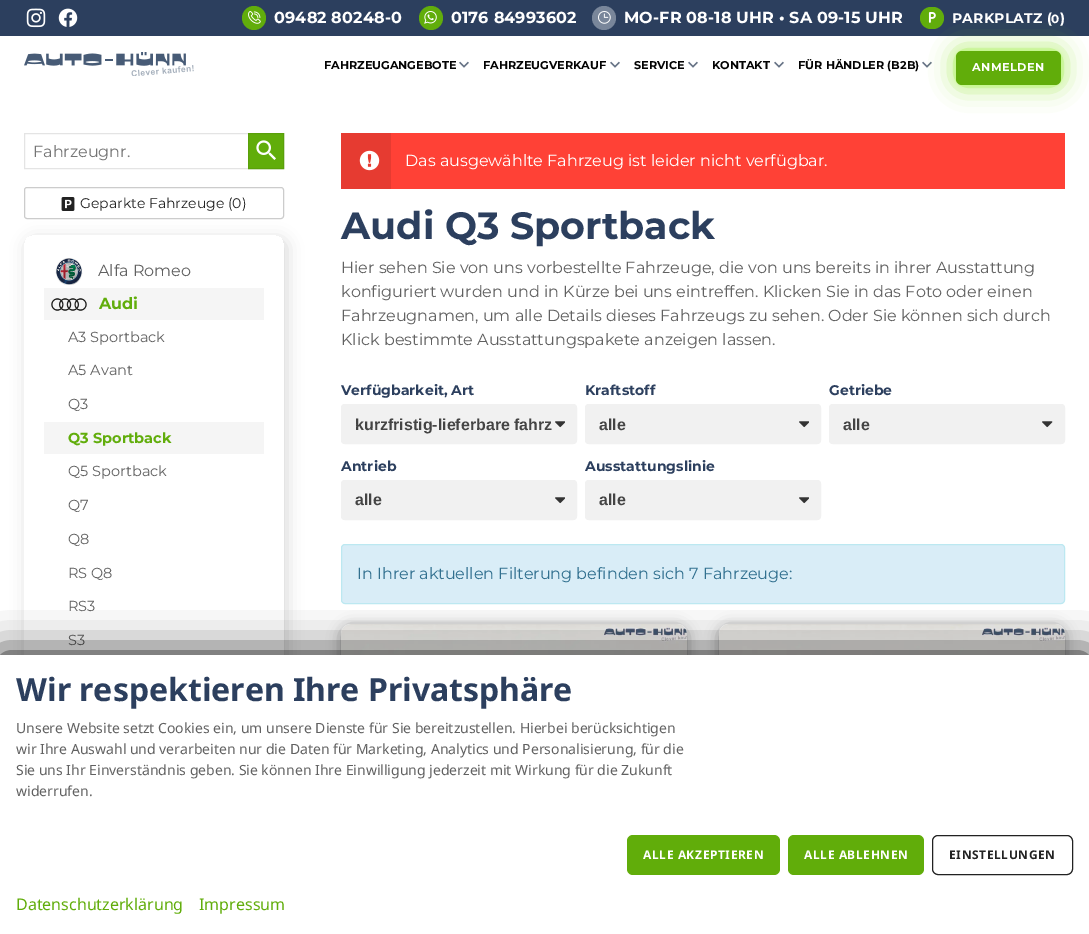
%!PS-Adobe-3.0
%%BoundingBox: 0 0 1089 934
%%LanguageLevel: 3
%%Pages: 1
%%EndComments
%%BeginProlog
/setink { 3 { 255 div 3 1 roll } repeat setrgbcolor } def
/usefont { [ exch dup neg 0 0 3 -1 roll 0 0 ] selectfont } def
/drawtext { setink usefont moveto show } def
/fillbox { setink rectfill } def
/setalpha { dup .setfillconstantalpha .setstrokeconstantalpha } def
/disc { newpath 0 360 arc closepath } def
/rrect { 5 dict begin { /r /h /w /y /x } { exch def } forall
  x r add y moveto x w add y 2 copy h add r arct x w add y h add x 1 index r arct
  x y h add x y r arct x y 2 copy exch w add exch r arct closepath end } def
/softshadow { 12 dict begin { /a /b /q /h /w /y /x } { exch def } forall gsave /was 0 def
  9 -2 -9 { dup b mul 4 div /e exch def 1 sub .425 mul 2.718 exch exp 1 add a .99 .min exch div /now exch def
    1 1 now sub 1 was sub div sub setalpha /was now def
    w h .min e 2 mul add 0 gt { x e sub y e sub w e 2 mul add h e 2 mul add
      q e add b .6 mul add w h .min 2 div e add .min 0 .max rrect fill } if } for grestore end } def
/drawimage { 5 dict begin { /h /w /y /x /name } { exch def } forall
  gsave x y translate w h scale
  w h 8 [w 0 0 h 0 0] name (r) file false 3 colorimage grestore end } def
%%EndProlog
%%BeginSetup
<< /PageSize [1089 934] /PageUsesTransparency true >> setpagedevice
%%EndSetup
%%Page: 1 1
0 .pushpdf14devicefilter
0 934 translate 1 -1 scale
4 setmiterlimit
0 0 1089 934 255 255 255 fillbox
0 0 1089 36 44 63 94 fillbox
(assets/img1.rgb) 26 8 20 20 drawimage
(assets/img2.rgb) 58 8 20 19 drawimage
97 173 11 setink
254 18 12 disc fill
(assets/img3.rgb) 248 11 13 13 drawimage
/Montserrat-Bold 16 usefont
255 255 255 setink
274 23 moveto 0.15 0 (09482 80248-0) ashow
97 173 11 setink
431 18 12 disc fill
(assets/img4.rgb) 424 11 13 13 drawimage
255 255 255 setink
451 23 moveto 0.15 0 (0176 84993602) ashow
121 134 154 setink
604 18 12 disc fill
(assets/img5.rgb) 598 11 13 13 drawimage
255 255 255 setink
624 23 moveto 0.15 0 (MO-FR 08-18 UHR • SA 09-15 UHR) ashow
97 173 11 setink
920 7 24 22 11 rrect fill
(assets/img6.rgb) 928 12 8 11 drawimage
/Montserrat-Bold 14 usefont
255 255 255 setink
952 23 moveto 0.15 0 (PARKPLATZ \() ashow
/Montserrat-Bold 12 usefont
1051 23 moveto 0.15 0 (0) ashow
/Montserrat-Bold 14 usefont
1060 23 moveto 0.15 0 (\)) ashow
(assets/img7.rgb) 24 52 170 24 drawimage
(FAHRZEUGANGEBOTE) 324 69 /Montserrat-Bold 11.25 3 3 3 drawtext
(assets/img8.rgb) 459 61 10 7 drawimage
(FAHRZEUGVERKAUF) 483 69 /Montserrat-Bold 11.25 3 3 3 drawtext
(assets/img8.rgb) 610 61 10 7 drawimage
(SERVICE) 634 69 /Montserrat-Bold 11.25 3 3 3 drawtext
(assets/img8.rgb) 688 61 10 7 drawimage
(KONTAKT) 712 69 /Montserrat-Bold 11.25 3 3 3 drawtext
(assets/img8.rgb) 774 61 10 7 drawimage
(FÜR HÄNDLER \(B2B\)) 798 69 /Montserrat-Bold 11.25 3 3 3 drawtext
(assets/img8.rgb) 922 61 10 7 drawimage
130 229 18 setink
956 51 105 34 6 12.5 0.75 softshadow
182 253 102 setink
956 51 105 34 6 2.5 0.7 softshadow
97 173 10 setink
956 51 105 34 6 rrect fill
255 255 255 setink
972 71 moveto 0.5 0 (ANMELDEN) ashow
228 228 228 setink
24.5 133.5 259 35 rectstroke
(Fahrzeugnr.) 33 157 /Montserrat-Regular 16 117 117 117 drawtext
249 134 34 34 97 173 10 fillbox
(assets/img9.rgb) 256 140 20 20 drawimage
90 160 10 setink
248.5 133.5 35 35 rectstroke
gsave
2 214 moveto 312 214 lineto 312 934 lineto 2 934 lineto closepath 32 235 moveto 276 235 lineto 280.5 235 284 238.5 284 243 curveto 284 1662 lineto 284 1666.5 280.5 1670 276 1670 curveto 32 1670 lineto 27.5 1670 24 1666.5 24 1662 curveto 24 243 lineto 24 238.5 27.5 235 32 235 curveto closepath eoclip newpath
0 0 0 setink
27 239 260 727 8 8 0.15 softshadow
grestore
204 204 204 setink
24.5 187.5 259 31 2.5 rrect stroke
(assets/img10.rgb) 61 197 14 14 drawimage
(Geparkte Fahrzeuge \(0\)) 80 208 /Montserrat-Regular 14 34 34 34 drawtext
(assets/img11.rgb) 55 258 28 27 drawimage
(Alfa Romeo) 98 276 /Montserrat-Regular 16 97 97 97 drawtext
44 288 220 32 245 245 245 fillbox
(assets/img12.rgb) 51 298 36 13 drawimage
(Audi) 99 309 /Montserrat-Bold 16 97 173 11 drawtext
(A3 Sportback) 68 342 /Montserrat-Regular 14.5 97 97 97 drawtext
(A5 Avant) 68 375 /Montserrat-Regular 14.5 97 97 97 drawtext
(Q3) 68 409 /Montserrat-Regular 14.5 97 97 97 drawtext
44 422 220 32 245 245 245 fillbox
(Q3 Sportback) 68 443 /Montserrat-Bold 14.5 97 173 11 drawtext
(Q5 Sportback) 68 476 /Montserrat-Regular 14.5 97 97 97 drawtext
(Q7) 68 510 /Montserrat-Regular 14.5 97 97 97 drawtext
(Q8) 68 544 /Montserrat-Regular 14.5 97 97 97 drawtext
(RS Q8) 68 578 /Montserrat-Regular 14.5 97 97 97 drawtext
(RS3) 68 611 /Montserrat-Regular 14.5 97 97 97 drawtext
(S3) 68 645 /Montserrat-Regular 14.5 97 97 97 drawtext
391 133 674 56 255 65 54 fillbox
341 133 50 56 230 59 49 fillbox
(assets/img13.rgb) 359 150 21 21 drawimage
(Das ausgewählte Fahrzeug ist leider nicht verfügbar.) 405 166 /Montserrat-Regular 16 255 255 255 drawtext
(Audi Q3 Sportback) 341 239 /Montserrat-Bold 38 44 63 94 drawtext
(Hier sehen Sie von uns vorbestellte Fahrzeuge, die von uns bereits in ihrer Ausstattung) 341 273 /Montserrat-Regular 16 97 97 97 drawtext
(konfiguriert wurden und in Kürze bei uns eintreffen. Klicken Sie in das Foto oder einen) 341 297 /Montserrat-Regular 16 97 97 97 drawtext
(Fahrzeugnamen, um alle Details dieses Fahrzeugs zu sehen. Oder Sie können sich durch) 341 321 /Montserrat-Regular 16 97 97 97 drawtext
(Klick bestimmte Ausstattungspakete anzeigen lassen.) 341 345 /Montserrat-Regular 16 97 97 97 drawtext
(Verfügbarkeit, Art) 341 395 /Montserrat-Bold 14 44 63 94 drawtext
241 241 241 setink
341 404 236 40 4 rrect fill
(assets/img14.rgb) 555 421 10 7 drawimage
341.5 404.5 235 39 3.5 rrect stroke
(kurzfristig-lieferbare fahrz) 355 430 /LiberationSans-Bold 16 68 68 68 drawtext
(Kraftstoff) 585 395 /Montserrat-Bold 14 44 63 94 drawtext
241 241 241 setink
585 404 236 40 4 rrect fill
(assets/img14.rgb) 799 421 10 7 drawimage
585.5 404.5 235 39 3.5 rrect stroke
(alle) 599 430 /LiberationSans-Bold 16 68 68 68 drawtext
(Getriebe) 829 395 /Montserrat-Bold 14 44 63 94 drawtext
241 241 241 setink
829 404 236 40 4 rrect fill
(assets/img15.rgb) 1042 421 11 7 drawimage
829.5 404.5 235 39 3.5 rrect stroke
(alle) 843 430 /LiberationSans-Bold 16 68 68 68 drawtext
(Antrieb) 341 471 /Montserrat-Bold 14 44 63 94 drawtext
241 241 241 setink
341 480 236 40 4 rrect fill
(assets/img14.rgb) 555 497 10 7 drawimage
341.5 480.5 235 39 3.5 rrect stroke
(alle) 355 505 /LiberationSans-Bold 16 68 68 68 drawtext
(Ausstattungslinie) 585 471 /Montserrat-Bold 14 44 63 94 drawtext
241 241 241 setink
585 480 236 40 4 rrect fill
(assets/img14.rgb) 799 497 10 7 drawimage
585.5 480.5 235 39 3.5 rrect stroke
(alle) 599 505 /LiberationSans-Bold 16 68 68 68 drawtext
217 237 247 setink
341.5 544.5 723 59 3.5 rrect gsave fill grestore
188 232 241 setink
stroke
(In Ihrer aktuellen Filterung befinden sich 7 Fahrzeuge:) 357 579 /Montserrat-Regular 16 49 112 143 drawtext
0 0 0 setink
342 627 344 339 9 7.5 0.25 softshadow
341 626 346 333 10 5 0.15 softshadow
255 255 255 setink
341 624 346 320 10 rrect fill
(assets/img16.rgb) 341 624 346 31 drawimage
0 0 0 setink
720 627 344 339 9 7.5 0.25 softshadow
719 626 346 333 10 5 0.15 softshadow
255 255 255 setink
719 624 346 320 10 rrect fill
(assets/img17.rgb) 719 624 346 31 drawimage
0 0 0 setink
0 655 1089 279 0 20 1 softshadow
0 655 1089 279 255 255 255 fillbox
(Wir respektieren Ihre Privatsphäre) 16 701 /NotoSans-Bold 32 44 63 94 drawtext
(Unsere Website setzt Cookies ein, um unsere Dienste für Sie bereitzustellen. Hierbei berücksichtigen) 16 733 /NotoSans-Regular 14 97 97 97 drawtext
(wir Ihre Auswahl und verarbeiten nur die Daten für Marketing, Analytics und Personalisierung, für die) 16 754 /NotoSans-Regular 14 97 97 97 drawtext
(Sie uns Ihr Einverständnis geben. Sie können Ihre Einwilligung jederzeit mit Wirkung für die Zukunft) 16 775 /NotoSans-Regular 14 97 97 97 drawtext
(widerrufen.) 16 796 /NotoSans-Regular 14 97 97 97 drawtext
97 173 10 setink
627 835 153 40 6 rrect fill
/NotoSans-Bold 12 usefont
255 255 255 setink
643 859 moveto 0.6 0 (ALLE AKZEPTIEREN) ashow
97 173 10 setink
788 835 136 40 6 rrect fill
255 255 255 setink
804 859 moveto 0.6 0 (ALLE ABLEHNEN) ashow
34 34 34 setink
932.5 835.5 140 39 5.5 rrect stroke
949 859 moveto 0.6 0 (EINSTELLUNGEN) ashow
(Datenschutzerklärung) 16 910 /NotoSans-Regular 16 97 173 11 drawtext
(Impressum) 199 910 /NotoSans-Regular 16 97 173 11 drawtext
.poppdf14devicefilter showpage
%%EOF
